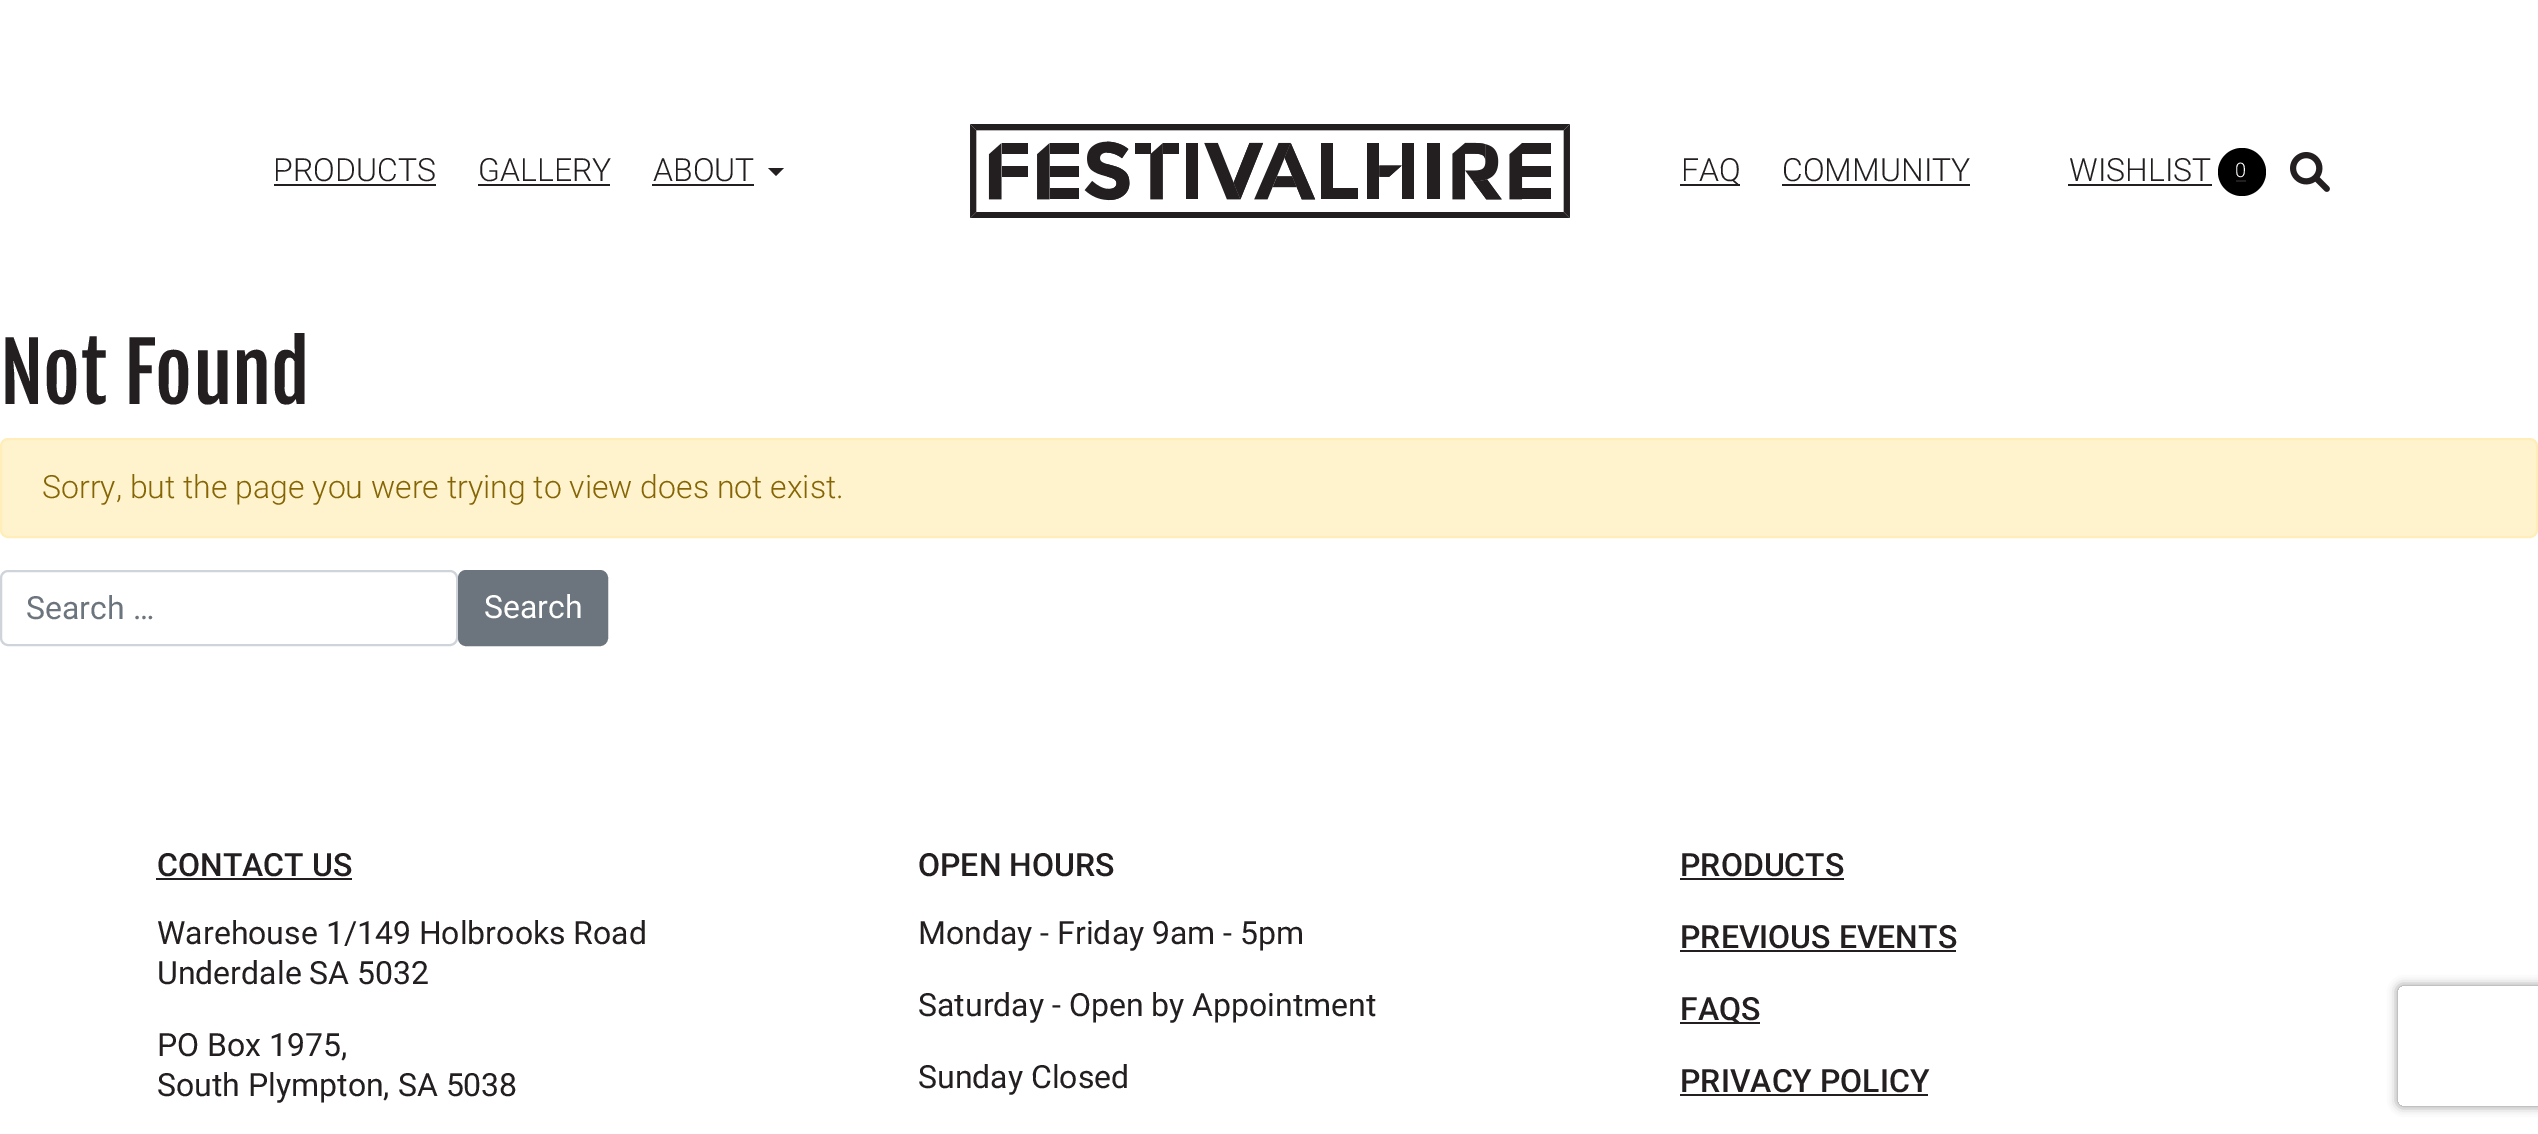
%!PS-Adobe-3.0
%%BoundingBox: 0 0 2538 1134
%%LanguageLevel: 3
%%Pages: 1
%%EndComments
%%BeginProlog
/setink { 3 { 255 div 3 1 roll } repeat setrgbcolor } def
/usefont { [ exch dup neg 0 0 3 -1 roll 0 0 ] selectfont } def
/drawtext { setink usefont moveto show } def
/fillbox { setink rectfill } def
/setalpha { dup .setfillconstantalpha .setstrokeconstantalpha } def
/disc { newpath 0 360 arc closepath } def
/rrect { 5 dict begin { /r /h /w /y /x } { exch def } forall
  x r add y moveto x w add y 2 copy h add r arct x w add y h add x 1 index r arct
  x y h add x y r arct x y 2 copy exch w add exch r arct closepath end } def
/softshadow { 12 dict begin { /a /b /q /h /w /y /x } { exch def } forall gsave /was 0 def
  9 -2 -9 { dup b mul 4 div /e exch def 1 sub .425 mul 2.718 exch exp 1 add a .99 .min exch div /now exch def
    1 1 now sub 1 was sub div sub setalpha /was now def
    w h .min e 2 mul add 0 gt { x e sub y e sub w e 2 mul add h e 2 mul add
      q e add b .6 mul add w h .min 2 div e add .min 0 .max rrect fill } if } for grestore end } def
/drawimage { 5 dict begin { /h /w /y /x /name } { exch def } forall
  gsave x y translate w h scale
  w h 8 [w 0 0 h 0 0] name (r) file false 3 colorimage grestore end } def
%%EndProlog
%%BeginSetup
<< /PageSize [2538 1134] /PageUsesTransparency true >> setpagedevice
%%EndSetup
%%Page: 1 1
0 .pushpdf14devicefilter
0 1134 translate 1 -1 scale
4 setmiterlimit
0 0 2538 1134 255 255 255 fillbox
(PRODUCTS) 273 181 /Roboto-Light 32 35 31 32 drawtext
274 184 162 2 35 31 32 fillbox
(GALLERY) 478 181 /Roboto-Light 32 35 31 32 drawtext
478 184 132 2 35 31 32 fillbox
(ABOUT) 653 181 /Roboto-Light 32 35 31 32 drawtext
652 184 102 2 35 31 32 fillbox
768 168 moveto 784 168 lineto 776 176 lineto closepath fill
(assets/img1.rgb) 970 124 600 94 drawimage
1680 184 60 2 35 31 32 fillbox
(FAQ) 1681 181 /Roboto-Light 32 35 31 32 drawtext
(COMMUNITY) 1782 181 /Roboto-Light 32 35 31 32 drawtext
1782 184 188 2 35 31 32 fillbox
(WISHLIST) 2069 181 /Roboto-Light 32 35 31 32 drawtext
2068 184 144 2 35 31 32 fillbox
0 0 0 setink
2242 172 24 disc fill
(0) 2235 177 /Roboto-Light 20 255 255 255 drawtext
2236 180 10 2 35 31 32 fillbox
(assets/img2.rgb) 2290 152 40 40 drawimage
(Not Found) 0 404 /FjallaOne-Regular 80 35 31 32 drawtext
255 243 205 setink
1 439 2536 98 7 rrect gsave fill grestore
255 238 186 setink
2 setlinewidth
stroke
(Sorry, but the page you were trying to view does not exist.) 42 498 /Roboto-Light 32 133 100 4 drawtext
206 212 218 setink
1 571 456 74 7 rrect stroke
(Search …) 26 619 /Roboto-Regular 32 108 117 125 drawtext
459 571 148 74 7 rrect gsave fill grestore
stroke
(Search) 484 618 /Roboto-Regular 32 255 255 255 drawtext
(CONTACT US) 157 876 /Roboto-Medium 32 35 31 32 drawtext
156 878 196 2 35 31 32 fillbox
(Warehouse 1/149 Holbrooks Road) 157 944 /Roboto-Regular 32 35 31 32 drawtext
(Underdale SA 5032) 157 984 /Roboto-Regular 32 35 31 32 drawtext
(PO Box 1975,) 157 1056 /Roboto-Regular 32 35 31 32 drawtext
(South Plympton, SA 5038) 157 1096 /Roboto-Regular 32 35 31 32 drawtext
(OPEN HOURS) 918 876 /Roboto-Medium 32 35 31 32 drawtext
(Monday - Friday 9am - 5pm) 918 944 /Roboto-Regular 32 35 31 32 drawtext
(Saturday - Open by Appointment) 918 1016 /Roboto-Regular 32 35 31 32 drawtext
(Sunday Closed) 918 1088 /Roboto-Regular 32 35 31 32 drawtext
(PRODUCTS) 1680 876 /Roboto-Medium 32 35 31 32 drawtext
1680 878 164 2 35 31 32 fillbox
(PREVIOUS EVENTS) 1680 948 /Roboto-Medium 32 35 31 32 drawtext
1680 950 276 2 35 31 32 fillbox
1680 1022 80 2 35 31 32 fillbox
(FAQS) 1680 1020 /Roboto-Medium 32 35 31 32 drawtext
(PRIVACY POLICY) 1680 1092 /Roboto-Medium 32 35 31 32 drawtext
1680 1094 248 2 35 31 32 fillbox
gsave
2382 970 moveto 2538 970 lineto 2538 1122 lineto 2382 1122 lineto closepath 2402 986 moveto 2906 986 lineto 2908 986 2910 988 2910 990 curveto 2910 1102 lineto 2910 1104 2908 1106 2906 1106 curveto 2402 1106 lineto 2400 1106 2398 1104 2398 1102 curveto 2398 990 lineto 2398 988 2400 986 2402 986 curveto closepath eoclip newpath
128 128 128 setink
2398 986 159 120 4 5 1 softshadow
grestore
.poppdf14devicefilter showpage
%%EOF
